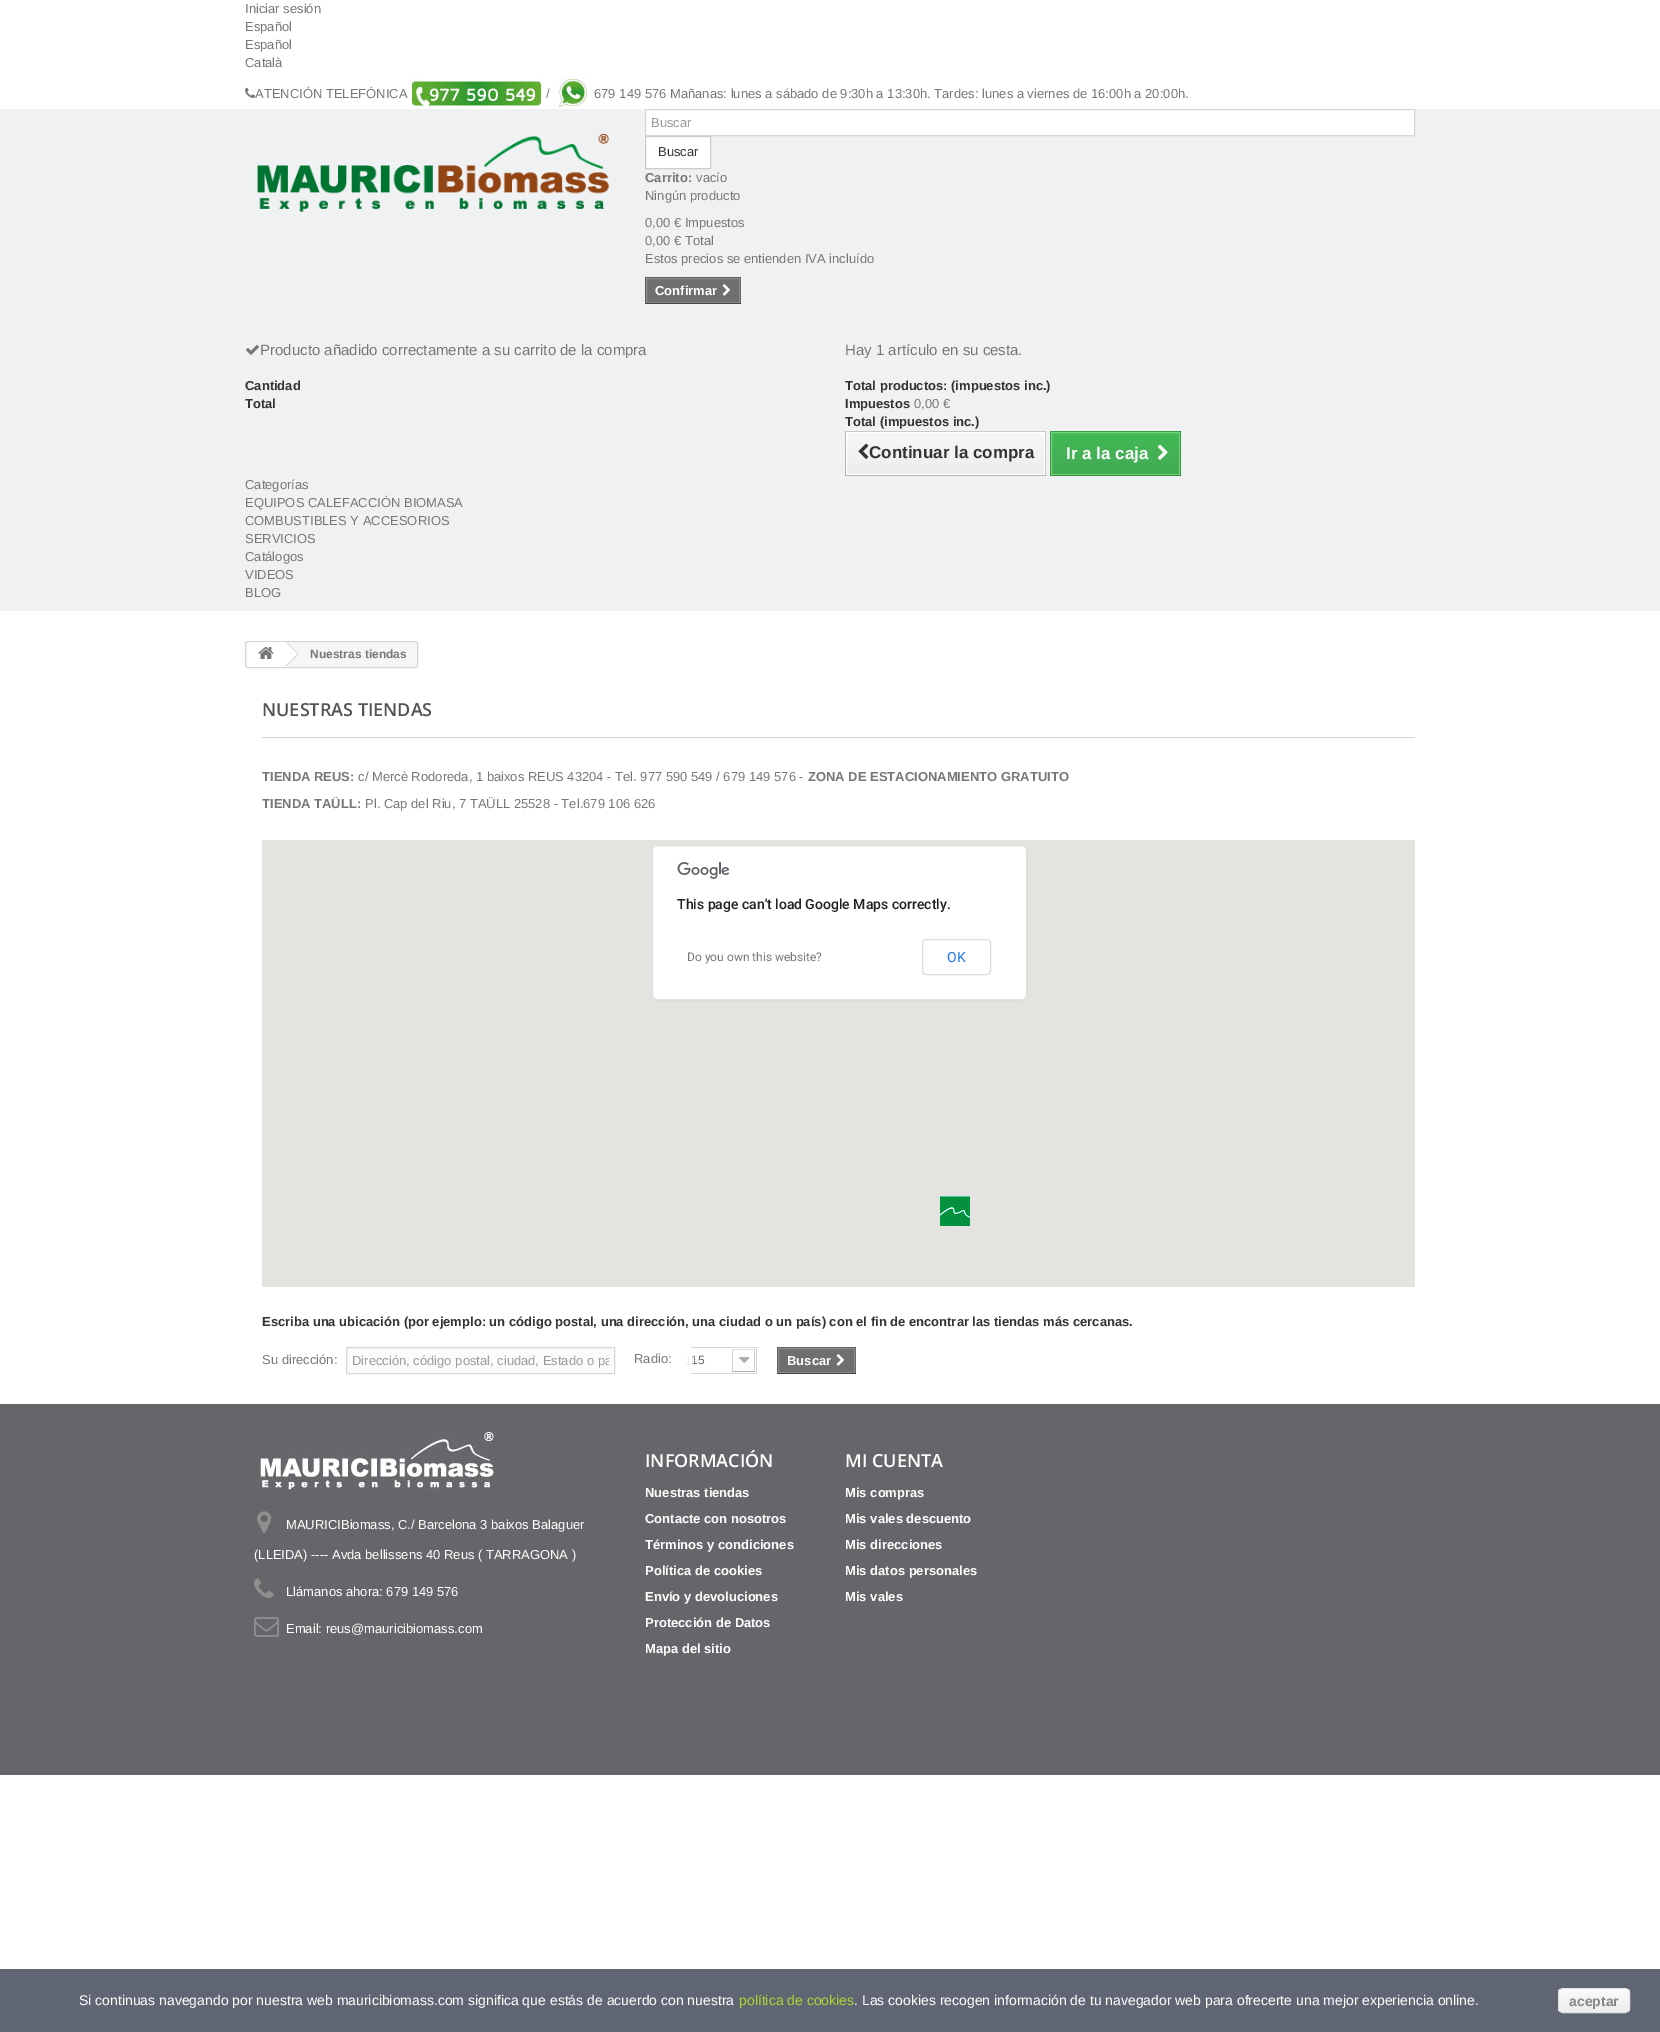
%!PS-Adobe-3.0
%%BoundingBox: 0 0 1660 2032
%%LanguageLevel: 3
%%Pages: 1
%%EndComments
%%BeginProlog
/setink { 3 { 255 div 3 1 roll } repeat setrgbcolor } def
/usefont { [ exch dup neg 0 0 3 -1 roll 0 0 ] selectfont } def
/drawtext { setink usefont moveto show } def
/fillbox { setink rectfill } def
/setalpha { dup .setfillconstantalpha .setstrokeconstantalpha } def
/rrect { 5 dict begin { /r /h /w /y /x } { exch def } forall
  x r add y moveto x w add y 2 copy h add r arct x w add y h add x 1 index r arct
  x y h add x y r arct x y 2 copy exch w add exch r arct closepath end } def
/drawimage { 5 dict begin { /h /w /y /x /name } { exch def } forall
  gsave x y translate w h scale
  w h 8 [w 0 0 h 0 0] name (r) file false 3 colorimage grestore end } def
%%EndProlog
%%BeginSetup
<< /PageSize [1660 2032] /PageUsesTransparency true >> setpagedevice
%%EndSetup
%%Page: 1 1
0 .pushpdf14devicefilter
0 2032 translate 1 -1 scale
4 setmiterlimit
0 0 1660 2032 255 255 255 fillbox
(Iniciar sesión) 245 13 /LiberationSans-Regular 13 119 119 119 drawtext
(Español) 245 31 /LiberationSans-Regular 13 119 119 119 drawtext
(Español) 245 49 /LiberationSans-Regular 13 119 119 119 drawtext
(Català) 245 67 /LiberationSans-Regular 13 119 119 119 drawtext
(assets/img1.rgb) 245 87 11 11 drawimage
(ATENCIÓN TELEFÓNICA) 255 98 /LiberationSans-Regular 13 119 119 119 drawtext
(assets/img2.rgb) 411 79 131 27 drawimage
(/) 546 98 /LiberationSans-Regular 13 119 119 119 drawtext
(assets/img3.rgb) 553 76 37 32 drawimage
(679 149 576 Mañanas: lunes a sábado de 9:30h a 13:30h. Tardes: lunes a viernes de 16:00h a 20:00h.) 594 98 /LiberationSans-Regular 13 119 119 119 drawtext
0 109 1660 502 240 241 243 fillbox
(assets/img4.rgb) 257 134 352 78 drawimage
255 255 255 setink
645.5 109.5 moveto 1414.5 109.5 lineto 1414.5 135.5 lineto 645.5 135.5 lineto closepath gsave fill grestore
214 212 212 setink
stroke
(Buscar) 651 127 /LiberationSans-Regular 13 156 155 155 drawtext
255 255 255 setink
645.5 136.5 moveto 710.5 136.5 lineto 710.5 168.5 lineto 645.5 168.5 lineto closepath gsave fill grestore
204 204 204 setink
stroke
(Buscar) 658 156 /LiberationSans-Regular 13 51 51 51 drawtext
(Carrito:) 645 182 /LiberationSans-Bold 13 119 119 119 drawtext
(vacío) 696 182 /LiberationSans-Regular 13 119 119 119 drawtext
(Ningún producto) 645 200 /LiberationSans-Regular 13 119 119 119 drawtext
(0,00 € Impuestos) 645 227 /LiberationSans-Regular 13 119 119 119 drawtext
(0,00 € Total) 645 245 /LiberationSans-Regular 13 119 119 119 drawtext
(Estos precios se entienden IVA incluído) 645 263 /LiberationSans-Regular 13 119 119 119 drawtext
645 277 96 1 102 102 102 fillbox
740 277 1 27 95 95 95 fillbox
645 303 96 1 41 41 41 fillbox
645 277 1 27 95 95 95 fillbox
111 111 111 setink
646.5 278.5 moveto 739.5 278.5 lineto 739.5 302.5 lineto 646.5 302.5 lineto closepath gsave fill grestore
139 138 138 setink
stroke
(Confirmar) 655 295 /LiberationSans-Bold 13 255 255 255 drawtext
(assets/img5.rgb) 722 284 9 12 drawimage
(assets/img6.rgb) 246 345 13 10 drawimage
(Producto añadido correctamente a su carrito de la compra) 260 355 /LiberationSans-Regular 15 119 119 119 drawtext
(Cantidad) 245 390 /LiberationSans-Bold 13 51 51 51 drawtext
(Total) 245 408 /LiberationSans-Bold 13 51 51 51 drawtext
(Hay 1 artículo en su cesta.) 845 355 /LiberationSans-Regular 15 119 119 119 drawtext
(Total productos: \(impuestos inc.\)) 845 390 /LiberationSans-Bold 13 51 51 51 drawtext
(Impuestos) 845 408 /LiberationSans-Bold 13 51 51 51 drawtext
(0,00 €) 914 408 /LiberationSans-Regular 13 119 119 119 drawtext
(Total \(impuestos inc.\)) 845 426 /LiberationSans-Bold 13 51 51 51 drawtext
845 431 201 1 202 202 202 fillbox
1045 431 1 45 183 183 183 fillbox
845 475 201 1 154 154 154 fillbox
845 431 1 45 183 183 183 fillbox
gsave 847 433 moveto 1044 433 lineto 1044 474 lineto 847 474 lineto closepath clip newpath
<< /ShadingType 2 /ColorSpace /DeviceRGB /Coords [946 433 946 474] /Extend [true true] /Function << /FunctionType 2 /Domain [0 1] /C0 [0.969 0.969 0.969] /C1 [0.929 0.929 0.929] /N 1 >> >> shfill grestore
255 255 255 setink
846.5 432.5 198 42 rectstroke
(assets/img7.rgb) 858 443 11 16 drawimage
(Continuar la compra) 869 458 /LiberationSans-Bold 17 51 51 51 drawtext
gsave 1052 433 moveto 1179 433 lineto 1179 474 lineto 1052 474 lineto closepath clip newpath
<< /ShadingType 2 /ColorSpace /DeviceRGB /Coords [1116 432 1116 475] /Extend [true true] /Function << /FunctionType 3 /Domain [0 1] /Functions [<< /FunctionType 2 /Domain [0 1] /C0 [0.263 0.718 0.329] /C1 [0.255 0.718 0.341] /N 1 >> << /FunctionType 2 /Domain [0 1] /C0 [0.255 0.718 0.341] /C1 [0.255 0.722 0.329] /N 1 >> << /FunctionType 2 /Domain [0 1] /C0 [0.255 0.722 0.329] /C1 [0.263 0.718 0.337] /N 1 >> << /FunctionType 2 /Domain [0 1] /C0 [0.263 0.718 0.337] /C1 [0.255 0.702 0.329] /N 1 >> << /FunctionType 2 /Domain [0 1] /C0 [0.255 0.702 0.329] /C1 [0.267 0.702 0.333] /N 1 >> << /FunctionType 2 /Domain [0 1] /C0 [0.267 0.702 0.333] /C1 [0.271 0.686 0.333] /N 1 >> << /FunctionType 2 /Domain [0 1] /C0 [0.271 0.686 0.333] /C1 [0.255 0.682 0.325] /N 1 >> << /FunctionType 2 /Domain [0 1] /C0 [0.255 0.682 0.325] /C1 [0.259 0.675 0.322] /N 1 >> << /FunctionType 2 /Domain [0 1] /C0 [0.259 0.675 0.322] /C1 [0.255 0.682 0.333] /N 1 >> << /FunctionType 2 /Domain [0 1] /C0 [0.255 0.682 0.333] /C1 [0.263 0.671 0.329] /N 1 >> << /FunctionType 2 /Domain [0 1] /C0 [0.263 0.671 0.329] /C1 [0.259 0.675 0.322] /N 1 >>] /Bounds [0.02 0.04 0.06 0.38 0.4 0.66 0.74 0.91 0.94 0.96] /Encode [0 1 0 1 0 1 0 1 0 1 0 1 0 1 0 1 0 1 0 1 0 1] >> >> shfill grestore
1050 431 131 1 57 154 73 fillbox
1180 431 1 45 36 127 50 fillbox
1050 475 131 1 26 109 39 fillbox
1050 431 1 45 57 154 73 fillbox
116 213 120 setink
1051.5 432.5 128 42 rectstroke
(Ir a la caja) 1066 459 /LiberationSans-Bold 17 255 255 255 drawtext
(assets/img8.rgb) 1157 444 11 16 drawimage
(Categorías) 245 489 /LiberationSans-Regular 13 119 119 119 drawtext
(EQUIPOS CALEFACCIÓN BIOMASA) 245 507 /LiberationSans-Regular 13 119 119 119 drawtext
(COMBUSTIBLES Y ACCESORIOS) 245 525 /LiberationSans-Regular 13 119 119 119 drawtext
(SERVICIOS) 245 543 /LiberationSans-Regular 13 119 119 119 drawtext
(Catálogos) 245 561 /LiberationSans-Regular 13 119 119 119 drawtext
(VIDEOS) 245 579 /LiberationSans-Regular 13 119 119 119 drawtext
(BLOG) 245 597 /LiberationSans-Regular 13 119 119 119 drawtext
246 246 246 setink
245.5 641.5 172 26 2.5 rrect gsave fill grestore
214 212 212 setink
stroke
255 255 255 setink
250 642 moveto 285 642 lineto 285 667 lineto 250 667 lineto 248.5 667 247 665.5 247 664 curveto 247 645 lineto 247 643.5 248.5 642 250 642 curveto closepath fill
(assets/img9.rgb) 258 646 16 13 drawimage
287.5 642.5 moveto 297.5 652.5 lineto 298 653.5 298 654.5 297.5 655.5 curveto 287.5 665.5 lineto 286.5 666 285.5 666 284.5 665.5 curveto 274.5 655.5 lineto 274 654.5 274 653.5 274.5 652.5 curveto 284.5 642.5 lineto 285.5 642 286.5 642 287.5 642.5 curveto closepath fill
214 212 212 setink
286.5 642 moveto 298 653.5 lineto 297.5 654 lineto 286 642.5 lineto closepath 297.5 654 moveto 298 655 lineto 286.5 666 lineto 286 665.5 lineto closepath fill
(Nuestras tiendas) 310 658 /LiberationSans-Bold 12 119 119 119 drawtext
262 737 1153 1 214 212 212 fillbox
(NUESTRAS TIENDAS) 262 716 /OpenSans-SemiBold 18 85 84 84 drawtext
(TIENDA REUS:) 262 781 /LiberationSans-Bold 13 119 119 119 drawtext
(c/ Mercè Rodoreda, 1 baixos REUS 43204 - Tel. 977 590 549 / 679 149 576 -) 358 781 /LiberationSans-Regular 13 119 119 119 drawtext
(ZONA DE ESTACIONAMIENTO GRATUITO) 808 781 /LiberationSans-Bold 13 119 119 119 drawtext
(TIENDA TAÜLL:) 262 808 /LiberationSans-Bold 13 119 119 119 drawtext
(Pl. Cap del Riu, 7 TAÜLL 25528 - Tel.679 106 626) 365 808 /LiberationSans-Regular 13 119 119 119 drawtext
262 840 1153 447 229 227 223 fillbox
(assets/img10.rgb) 940 1196 30 30 drawimage
255 255 255 setink
652 845 375 155 5 rrect fill
0.12 setalpha
0 0 0 setink
652.5 845.5 374 154 4.5 rrect stroke
1 setalpha
(assets/img11.rgb) 677 862 52 17 drawimage
(This page can't load Google Maps correctly.) 677 909 /Roboto-Medium 14 33 33 33 drawtext
(Do you own this website?) 687 961 /Roboto-Regular 12 119 119 119 drawtext
218 220 224 setink
922.5 939.5 68 35 3.5 rrect stroke
(OK) 947 962 /Roboto-Regular 14 26 115 232 drawtext
(Escriba una ubicación \(por ejemplo: un código postal, una dirección, una ciudad o un país\) con el fin de encontrar las tiendas más cercanas.) 262 1326 /LiberationSans-Bold 13 51 51 51 drawtext
(Su dirección:) 262 1364 /LiberationSans-Regular 13 119 119 119 drawtext
251 251 251 setink
346.5 1347.5 moveto 614.5 1347.5 lineto 614.5 1373.5 lineto 346.5 1373.5 lineto closepath gsave fill grestore
214 212 212 setink
stroke
gsave
352 1353 257 15 rectclip
(Dirección, código postal, ciudad, Estado o pa) 352 1365 /LiberationSans-Regular 13 156 155 155 drawtext
grestore
(Radio:) 634 1363 /LiberationSans-Regular 13 119 119 119 drawtext
(assets/img12.rgb) 691 1347 66 27 drawimage
(15) 691 1364 /LiberationSans-Regular 12 102 102 102 drawtext
(15) 685 1365 /LiberationSans-Regular 12 234 234 234 drawtext
777 1347 79 1 102 102 102 fillbox
855 1347 1 27 95 95 95 fillbox
777 1373 79 1 41 41 41 fillbox
777 1347 1 27 95 95 95 fillbox
111 111 111 setink
778.5 1348.5 moveto 854.5 1348.5 lineto 854.5 1372.5 lineto 778.5 1372.5 lineto closepath gsave fill grestore
139 138 138 setink
stroke
(Buscar) 787 1365 /LiberationSans-Bold 13 255 255 255 drawtext
(assets/img5.rgb) 836 1354 9 12 drawimage
0 1404 1660 371 102 102 106 fillbox
(assets/img13.rgb) 258 1429 240 64 drawimage
(assets/img14.rgb) 257 1511 15 22 drawimage
(MAURICIBiomass, C./ Barcelona 3 baixos Balaguer) 286 1529 /LiberationSans-Regular 13 255 255 255 drawtext
(\(LLEIDA\) ---- Avda bellissens 40 Reus \( TARRAGONA \)) 254 1559 /LiberationSans-Regular 13 255 255 255 drawtext
(assets/img15.rgb) 254 1578 20 20 drawimage
(Llámanos ahora: 679 149 576) 286 1596 /LiberationSans-Regular 13 255 255 255 drawtext
(assets/img16.rgb) 254 1617 25 20 drawimage
(Email: reus@mauricibiomass.com) 286 1633 /LiberationSans-Regular 13 255 255 255 drawtext
(INFORMACIÓN) 645 1467 /OpenSans-SemiBold 18 255 255 255 drawtext
(Nuestras tiendas) 645 1497 /LiberationSans-Bold 13 255 255 255 drawtext
(Contacte con nosotros) 645 1523 /LiberationSans-Bold 13 255 255 255 drawtext
(Términos y condiciones) 645 1549 /LiberationSans-Bold 13 255 255 255 drawtext
(Política de cookies) 645 1575 /LiberationSans-Bold 13 255 255 255 drawtext
(Envío y devoluciones) 645 1601 /LiberationSans-Bold 13 255 255 255 drawtext
(Protección de Datos) 645 1627 /LiberationSans-Bold 13 255 255 255 drawtext
(Mapa del sitio) 645 1653 /LiberationSans-Bold 13 255 255 255 drawtext
(MI CUENTA) 845 1467 /OpenSans-SemiBold 18 255 255 255 drawtext
(Mis compras) 845 1497 /LiberationSans-Bold 13 255 255 255 drawtext
(Mis vales descuento) 845 1523 /LiberationSans-Bold 13 255 255 255 drawtext
(Mis direcciones) 845 1549 /LiberationSans-Bold 13 255 255 255 drawtext
(Mis datos personales) 845 1575 /LiberationSans-Bold 13 255 255 255 drawtext
(Mis vales) 845 1601 /LiberationSans-Bold 13 255 255 255 drawtext
0 1969 1660 63 96 101 115 fillbox
(Si continuas navegando por nuestra web mauricibiomass.com significa que estás de acuerdo con nuestra) 79 2005 /LiberationSans-Regular 14 255 255 255 drawtext
(política de cookies) 739 2005 /LiberationSans-Regular 14 173 214 51 drawtext
(. Las cookies recogen información de tu navegador web para ofrecerte una mejor experiencia online.) 854 2005 /LiberationSans-Regular 14 255 255 255 drawtext
gsave
1558 1988 72 25 5 rrect clip newpath
gsave 1558 1989 moveto 1630 1989 lineto 1630 2012 lineto 1558 2012 lineto closepath clip newpath
<< /ShadingType 2 /ColorSpace /DeviceRGB /Coords [1559 1989 1559 2012] /Extend [true true] /Function << /FunctionType 3 /Domain [0 1] /Functions [<< /FunctionType 2 /Domain [0 1] /C0 [0.98 0.98 0.98] /C1 [0.98 0.98 0.98] /N 1 >> << /FunctionType 2 /Domain [0 1] /C0 [0.98 0.98 0.98] /C1 [0.929 0.929 0.929] /N 1 >>] /Bounds [0.05] /Encode [0 1 0 1] >> >> shfill grestore
grestore
1563 1990 moveto 1625 1990 lineto 1627 1990 1629 1992 1629 1994 curveto 1629 1987 1620 1989 1615 1989 curveto 1573 1989 lineto 1568 1989 1559 1987 1559 1994 curveto 1559 1992 1561 1990 1563 1990 curveto closepath fill
227 227 227 setink
1558.5 1988.5 71 24 4.5 rrect stroke
(aceptar) 1569 2006 /LiberationSans-Bold 14 133 133 133 drawtext
.poppdf14devicefilter showpage
%%EOF
